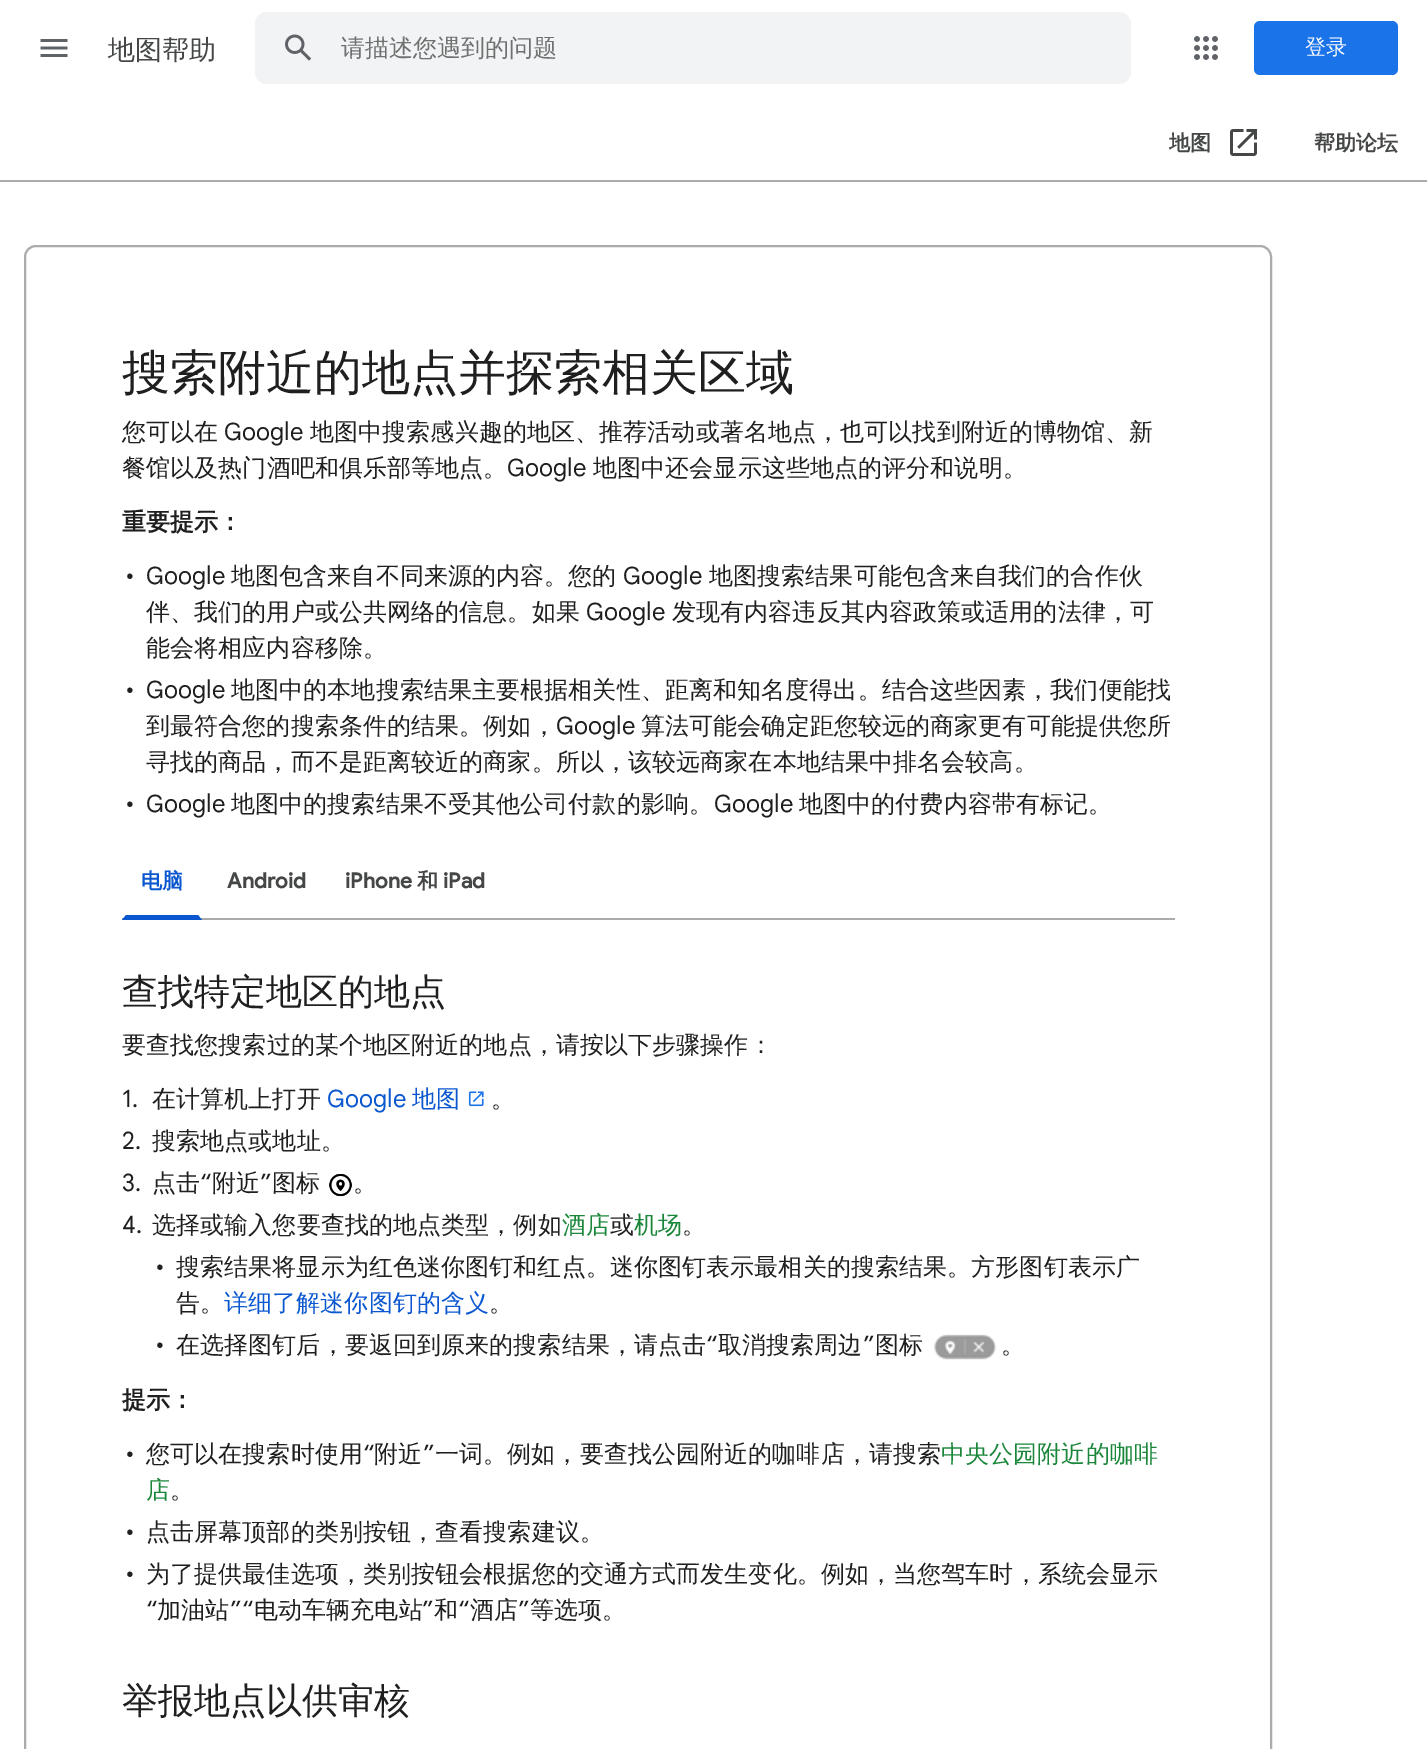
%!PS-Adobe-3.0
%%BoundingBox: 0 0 1427 1749
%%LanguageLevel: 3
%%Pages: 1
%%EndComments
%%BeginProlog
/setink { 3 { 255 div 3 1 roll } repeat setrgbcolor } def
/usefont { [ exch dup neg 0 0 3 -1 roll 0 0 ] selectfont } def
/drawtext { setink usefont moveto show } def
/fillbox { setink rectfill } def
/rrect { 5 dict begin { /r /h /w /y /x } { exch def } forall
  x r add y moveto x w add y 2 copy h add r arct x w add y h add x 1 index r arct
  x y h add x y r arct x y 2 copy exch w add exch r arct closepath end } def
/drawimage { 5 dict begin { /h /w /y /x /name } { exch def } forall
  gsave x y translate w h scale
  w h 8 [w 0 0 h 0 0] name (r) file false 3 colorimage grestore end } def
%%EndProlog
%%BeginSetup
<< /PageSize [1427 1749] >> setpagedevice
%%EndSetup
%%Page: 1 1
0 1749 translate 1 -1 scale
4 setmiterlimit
0 0 1427 1749 255 255 255 fillbox
(assets/img1.rgb) 40 39 28 18 drawimage
(地图帮助) 108 59 /WenQuanYiZenHei-Medium 27 68 71 70 drawtext
241 243 244 setink
255 12 876 72 12 rrect fill
(assets/img2.rgb) 285 34 27 27 drawimage
(请描述您遇到的问题) 341 56 /WenQuanYiZenHei-Medium 24 111 112 112 drawtext
(assets/img3.rgb) 1194 36 24 24 drawimage
26 115 232 setink
1254 21 144 54 6 rrect fill
(登录) 1305 54 /WenQuanYiZenHei-Medium 21 255 255 255 drawtext
0 180 1427 2 169 172 170 fillbox
(地图) 1169 150 /WenQuanYiZenHei-Bold 21 68 71 70 drawtext
(assets/img4.rgb) 1230 129 27 27 drawimage
(帮助论坛) 1314 150 /WenQuanYiZenHei-Bold 21 68 71 70 drawtext
169 172 170 setink
2 setlinewidth
25 246 1246 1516 11 rrect stroke
(搜索附近的地点并探索相关区域) 122 389 /WenQuanYiZenHei-Medium 48 31 31 31 drawtext
/WenQuanYiZenHei-Medium 24 usefont
122 440 moveto 0.1 0 (您可以在) ashow
/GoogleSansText-Regular 24 usefont
224 440 moveto 0.1 0 (Google) ashow
/WenQuanYiZenHei-Medium 24 usefont
310 440 moveto 0.1 0 (地图中搜索感兴趣的地区、推荐活动或著名地点，也可以找到附近的博物馆、新) ashow
122 476 moveto 0.1 0 (餐馆以及热门酒吧和俱乐部等地点。) ashow
/GoogleSansText-Regular 24 usefont
507 476 moveto 0.1 0 (Google) ashow
/WenQuanYiZenHei-Medium 24 usefont
593 476 moveto 0.1 0 (地图中还会显示这些地点的评分和说明。) ashow
/WenQuanYiZenHei-Bold 24 usefont
122 530 moveto 0.1 0 (重要提示：) ashow
/GoogleSansText-Regular 24 usefont
125 584 moveto 0.1 0 (•) ashow
146 584 moveto 0.1 0 (Google) ashow
/WenQuanYiZenHei-Medium 24 usefont
231 584 moveto 0.1 0 (地图包含来自不同来源的内容。您的) ashow
/GoogleSansText-Regular 24 usefont
623 584 moveto 0.1 0 (Google) ashow
/WenQuanYiZenHei-Medium 24 usefont
709 584 moveto 0.1 0 (地图搜索结果可能包含来自我们的合作伙) ashow
146 620 moveto 0.1 0 (伴、我们的用户或公共网络的信息。如果) ashow
/GoogleSansText-Regular 24 usefont
586 620 moveto 0.1 0 (Google) ashow
/WenQuanYiZenHei-Medium 24 usefont
672 620 moveto 0.1 0 (发现有内容违反其内容政策或适用的法律，可) ashow
146 656 moveto 0.1 0 (能会将相应内容移除。) ashow
/GoogleSansText-Regular 24 usefont
125 698 moveto 0.1 0 (•) ashow
146 698 moveto 0.1 0 (Google) ashow
/WenQuanYiZenHei-Medium 24 usefont
231 698 moveto 0.1 0 (地图中的本地搜索结果主要根据相关性、距离和知名度得出。结合这些因素，我们便能找) ashow
146 734 moveto 0.1 0 (到最符合您的搜索条件的结果。例如，) ashow
/GoogleSansText-Regular 24 usefont
556 734 moveto 0.1 0 (Google) ashow
/WenQuanYiZenHei-Medium 24 usefont
641 734 moveto 0.1 0 (算法可能会确定距您较远的商家更有可能提供您所) ashow
146 770 moveto 0.1 0 (寻找的商品，而不是距离较近的商家。所以，该较远商家在本地结果中排名会较高。) ashow
/GoogleSansText-Regular 24 usefont
125 812 moveto 0.1 0 (•) ashow
146 812 moveto 0.1 0 (Google) ashow
/WenQuanYiZenHei-Medium 24 usefont
231 812 moveto 0.1 0 (地图中的搜索结果不受其他公司付款的影响。) ashow
/GoogleSansText-Regular 24 usefont
714 812 moveto 0.1 0 (Google) ashow
/WenQuanYiZenHei-Medium 24 usefont
799 812 moveto 0.1 0 (地图中的付费内容带有标记。) ashow
122 918 1053 2 169 172 170 fillbox
11 87 208 setink
202 920 moveto 122 920 lineto 126 915 lineto 198 915 lineto closepath fill
(电脑) 141 888 /WenQuanYiZenHei-Bold 21 11 87 208 drawtext
(Android) 227 888 /GoogleSans-Bold 21 68 71 70 drawtext
(iPhone) 345 888 /GoogleSans-Bold 21 68 71 70 drawtext
(和) 417 888 /WenQuanYiZenHei-Bold 21 68 71 70 drawtext
(iPad) 443 888 /GoogleSans-Bold 21 68 71 70 drawtext
(查找特定地区的地点) 122 1004 /WenQuanYiZenHei-Medium 36 31 31 31 drawtext
/WenQuanYiZenHei-Medium 24 usefont
122 1053 moveto 0.1 0 (要查找您搜索过的某个地区附近的地点，请按以下步骤操作：) ashow
/GoogleSansText-Regular 24 usefont
122 1107 moveto 0.1 0 (1.) ashow
/WenQuanYiZenHei-Medium 24 usefont
152 1107 moveto 0.1 0 (在计算机上打开) ashow
/GoogleSansText-Regular 24 usefont
11 87 208 setink
327 1107 moveto 0.1 0 (Google) ashow
/WenQuanYiZenHei-Medium 24 usefont
412 1107 moveto 0.1 0 (地图) ashow
(assets/img5.rgb) 468 1091 16 16 drawimage
31 31 31 setink
491 1107 moveto 0.1 0 (。) ashow
/GoogleSansText-Regular 24 usefont
122 1149 moveto 0.1 0 (2.) ashow
/WenQuanYiZenHei-Medium 24 usefont
152 1149 moveto 0.1 0 (搜索地点或地址。) ashow
/GoogleSansText-Regular 24 usefont
122 1191 moveto 0.1 0 (3.) ashow
/WenQuanYiZenHei-Medium 24 usefont
152 1191 moveto 0.1 0 (点击) ashow
/GoogleSansText-Regular 24 usefont
200 1191 moveto 0.1 0 (“) ashow
/WenQuanYiZenHei-Medium 24 usefont
212 1191 moveto 0.1 0 (附近) ashow
/GoogleSansText-Regular 24 usefont
260 1191 moveto 0.1 0 (”) ashow
/WenQuanYiZenHei-Medium 24 usefont
272 1191 moveto 0.1 0 (图标) ashow
(assets/img6.rgb) 329 1174 23 23 drawimage
353 1191 moveto 0.1 0 (。) ashow
/GoogleSansText-Regular 24 usefont
122 1233 moveto 0.1 0 (4.) ashow
/WenQuanYiZenHei-Medium 24 usefont
152 1233 moveto 0.1 0 (选择或输入您要查找的地点类型，例如) ashow
25 134 57 setink
562 1233 moveto 0.1 0 (酒店) ashow
31 31 31 setink
610 1233 moveto 0.1 0 (或) ashow
25 134 57 setink
634 1233 moveto 0.1 0 (机场) ashow
31 31 31 setink
682 1233 moveto 0.1 0 (。) ashow
/GoogleSansText-Regular 24 usefont
155 1275 moveto 0.1 0 (•) ashow
/WenQuanYiZenHei-Medium 24 usefont
176 1275 moveto 0.1 0 (搜索结果将显示为红色迷你图钉和红点。迷你图钉表示最相关的搜索结果。方形图钉表示广) ashow
176 1311 moveto 0.1 0 (告。) ashow
11 87 208 setink
224 1311 moveto 0.1 0 (详细了解迷你图钉的含义) ashow
31 31 31 setink
489 1311 moveto 0.1 0 (。) ashow
176 1353 moveto 0.1 0 (在选择图钉后，要返回到原来的搜索结果，请点击) ashow
/GoogleSansText-Regular 24 usefont
706 1353 moveto 0.1 0 (“) ashow
/WenQuanYiZenHei-Medium 24 usefont
718 1353 moveto 0.1 0 (取消搜索周边) ashow
/GoogleSansText-Regular 24 usefont
863 1353 moveto 0.1 0 (”) ashow
/WenQuanYiZenHei-Medium 24 usefont
875 1353 moveto 0.1 0 (图标) ashow
(assets/img7.rgb) 934 1334 63 26 drawimage
/GoogleSansText-Regular 24 usefont
155 1353 moveto 0.1 0 (•) ashow
/WenQuanYiZenHei-Medium 24 usefont
1001 1353 moveto 0.1 0 (。) ashow
/WenQuanYiZenHei-Bold 24 usefont
122 1408 moveto 0.1 0 (提示：) ashow
/WenQuanYiZenHei-Medium 24 usefont
146 1462 moveto 0.1 0 (您可以在搜索时使用) ashow
/GoogleSansText-Regular 24 usefont
363 1462 moveto 0.1 0 (“) ashow
/WenQuanYiZenHei-Medium 24 usefont
374 1462 moveto 0.1 0 (附近) ashow
/GoogleSansText-Regular 24 usefont
423 1462 moveto 0.1 0 (”) ashow
/WenQuanYiZenHei-Medium 24 usefont
435 1462 moveto 0.1 0 (一词。例如，要查找公园附近的咖啡店，请搜索) ashow
25 134 57 setink
941 1462 moveto 0.1 0 (中央公园附近的咖啡) ashow
/GoogleSansText-Regular 24 usefont
31 31 31 setink
125 1462 moveto 0.1 0 (•) ashow
/WenQuanYiZenHei-Medium 24 usefont
25 134 57 setink
146 1498 moveto 0.1 0 (店) ashow
31 31 31 setink
170 1498 moveto 0.1 0 (。) ashow
/GoogleSansText-Regular 24 usefont
125 1540 moveto 0.1 0 (•) ashow
/WenQuanYiZenHei-Medium 24 usefont
146 1540 moveto 0.1 0 (点击屏幕顶部的类别按钮，查看搜索建议。) ashow
/GoogleSansText-Regular 24 usefont
125 1582 moveto 0.1 0 (•) ashow
/WenQuanYiZenHei-Medium 24 usefont
146 1582 moveto 0.1 0 (为了提供最佳选项，类别按钮会根据您的交通方式而发生变化。例如，当您驾车时，系统会显示) ashow
/GoogleSansText-Regular 24 usefont
146 1618 moveto 0.1 0 (“) ashow
/WenQuanYiZenHei-Medium 24 usefont
157 1618 moveto 0.1 0 (加油站) ashow
/GoogleSansText-Regular 24 usefont
230 1618 moveto 0.1 0 (”“) ashow
/WenQuanYiZenHei-Medium 24 usefont
254 1618 moveto 0.1 0 (电动车辆充电站) ashow
/GoogleSansText-Regular 24 usefont
422 1618 moveto 0.1 0 (”) ashow
/WenQuanYiZenHei-Medium 24 usefont
434 1618 moveto 0.1 0 (和) ashow
/GoogleSansText-Regular 24 usefont
458 1618 moveto 0.1 0 (“) ashow
/WenQuanYiZenHei-Medium 24 usefont
470 1618 moveto 0.1 0 (酒店) ashow
/GoogleSansText-Regular 24 usefont
518 1618 moveto 0.1 0 (”) ashow
/WenQuanYiZenHei-Medium 24 usefont
530 1618 moveto 0.1 0 (等选项。) ashow
(举报地点以供审核) 122 1713 /WenQuanYiZenHei-Medium 36 31 31 31 drawtext
showpage
%%EOF
